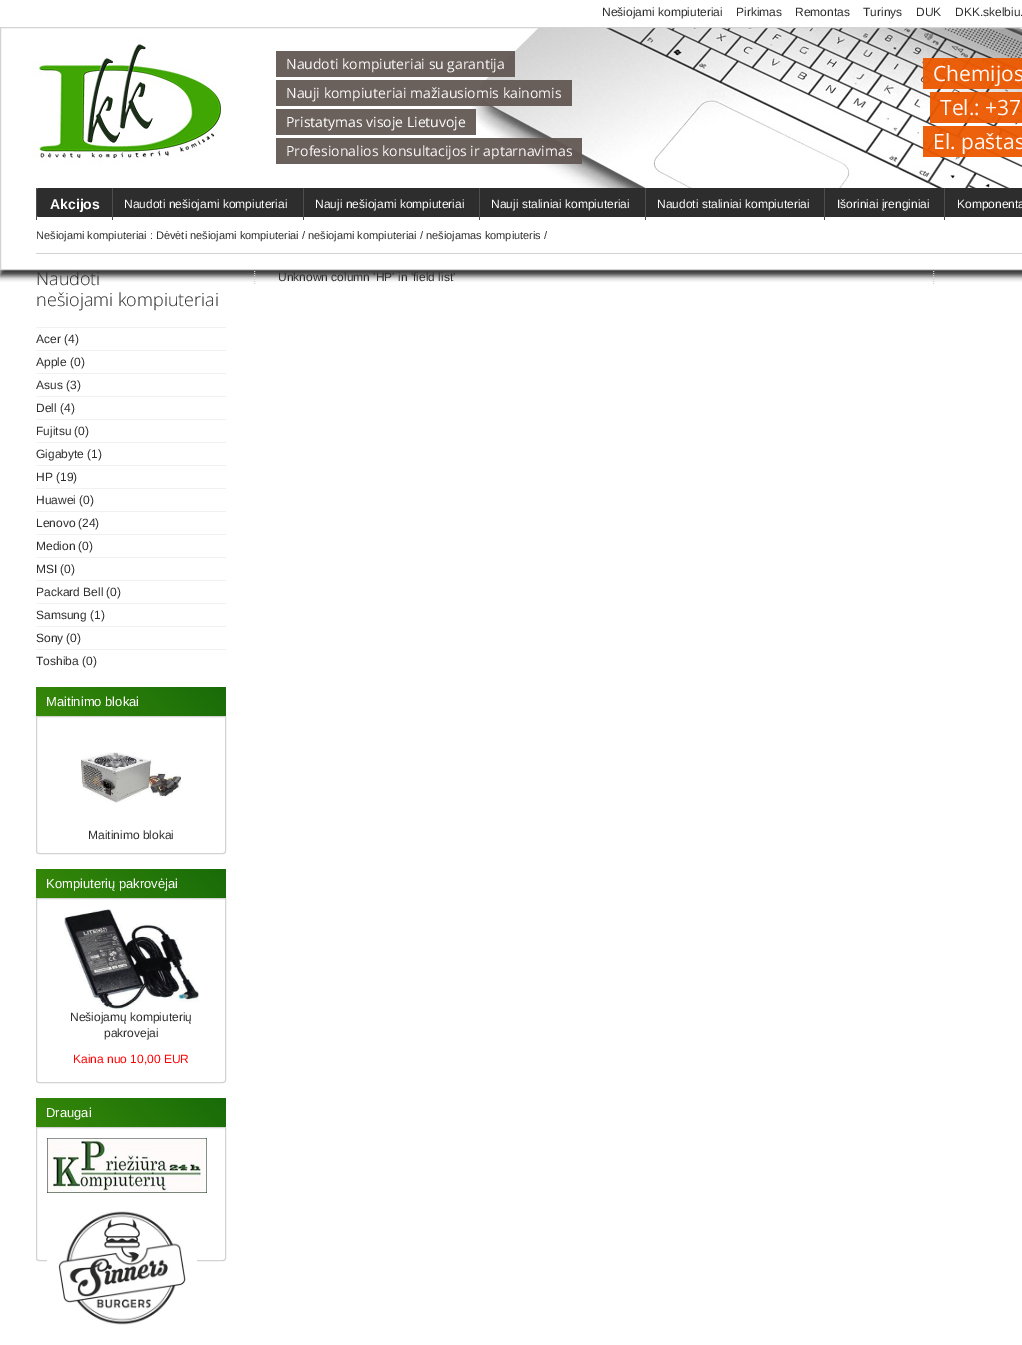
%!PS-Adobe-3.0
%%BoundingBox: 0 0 1022 1345
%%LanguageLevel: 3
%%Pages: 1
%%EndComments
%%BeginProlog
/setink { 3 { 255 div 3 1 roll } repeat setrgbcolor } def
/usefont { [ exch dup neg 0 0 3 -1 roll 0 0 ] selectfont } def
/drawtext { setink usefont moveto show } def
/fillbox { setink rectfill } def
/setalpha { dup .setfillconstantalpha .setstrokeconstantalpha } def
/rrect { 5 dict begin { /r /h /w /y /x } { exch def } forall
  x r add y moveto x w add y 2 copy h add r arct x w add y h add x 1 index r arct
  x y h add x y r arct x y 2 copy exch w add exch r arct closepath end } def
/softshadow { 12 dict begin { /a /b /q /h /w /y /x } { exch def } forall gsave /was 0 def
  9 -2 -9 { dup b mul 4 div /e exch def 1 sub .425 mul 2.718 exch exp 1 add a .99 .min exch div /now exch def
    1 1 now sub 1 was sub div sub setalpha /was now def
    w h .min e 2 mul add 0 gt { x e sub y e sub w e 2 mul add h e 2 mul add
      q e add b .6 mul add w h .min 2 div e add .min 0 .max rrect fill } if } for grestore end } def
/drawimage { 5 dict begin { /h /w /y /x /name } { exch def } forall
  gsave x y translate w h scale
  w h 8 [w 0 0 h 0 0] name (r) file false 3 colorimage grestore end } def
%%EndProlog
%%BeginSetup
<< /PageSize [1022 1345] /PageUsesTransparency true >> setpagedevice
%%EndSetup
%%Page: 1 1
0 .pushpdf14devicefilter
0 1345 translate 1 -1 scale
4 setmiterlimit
0 0 1022 1345 255 255 255 fillbox
gsave
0 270 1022 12 rectclip
45 45 45 setink
0 33 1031 243 0 3 1 softshadow
grestore
(assets/img1.rgb) 33 28 989 185 drawimage
211 211 211 setink
0.5 27.5 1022 242 rectstroke
(Nešiojami kompiuteriai) 602 16 /LiberationSans-Regular 12 45 45 45 drawtext
(Pirkimas) 736 16 /LiberationSans-Regular 12 45 45 45 drawtext
(Remontas) 795 16 /LiberationSans-Regular 12 45 45 45 drawtext
(Turinys) 863 16 /LiberationSans-Regular 12 45 45 45 drawtext
(DUK) 916 16 /LiberationSans-Regular 12 45 45 45 drawtext
(DKK.skelbiu.) 955 16 /LiberationSans-Regular 12 45 45 45 drawtext
0.95 setalpha
276 51 239 26 98 87 83 fillbox
1 setalpha
(Naudoti kompiuteriai su garantija) 286 69 /OpenSans-Regular 14 248 247 247 drawtext
0.95 setalpha
276 80 296 26 98 87 83 fillbox
1 setalpha
(Nauji kompiuteriai mažiausiomis kainomis) 286 98 /OpenSans-Regular 14 248 247 247 drawtext
0.95 setalpha
276 109 200 26 98 87 83 fillbox
1 setalpha
(Pristatymas visoje Lietuvoje) 286 127 /OpenSans-Regular 14 255 255 255 drawtext
0.95 setalpha
276 138 306 26 98 87 83 fillbox
1 setalpha
(Profesionalios konsultacijos ir aptarnavimas) 286 156 /OpenSans-Regular 14 248 247 247 drawtext
0.95 setalpha
923 58 99 31 236 88 0 fillbox
1 setalpha
(Chemijos) 933 81 /OpenSans-Regular 21 254 247 243 drawtext
0.95 setalpha
930 92 92 31 236 88 0 fillbox
1 setalpha
(Tel.: +37) 940 115 /OpenSans-Regular 21 254 247 243 drawtext
0.95 setalpha
923 126 99 31 236 88 0 fillbox
1 setalpha
(El. paštas) 933 149 /OpenSans-Regular 21 254 247 243 drawtext
45 45 45 setink
36 188 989 29 3 rrect fill
36 188 1 32 77 77 77 fillbox
(Akcijos) 50 209 /LiberationSans-Bold 14 255 255 255 drawtext
112 188 1 32 77 77 77 fillbox
(Naudoti nešiojami kompiuteriai) 124 208 /LiberationSans-Regular 12 255 255 255 drawtext
303 188 1 32 77 77 77 fillbox
(Nauji nešiojami kompiuteriai) 315 208 /LiberationSans-Regular 12 255 255 255 drawtext
479 188 1 32 77 77 77 fillbox
(Nauji staliniai kompiuteriai) 491 208 /LiberationSans-Regular 12 255 255 255 drawtext
645 188 1 32 77 77 77 fillbox
(Naudoti staliniai kompiuteriai) 657 208 /LiberationSans-Regular 12 255 255 255 drawtext
824 188 1 32 77 77 77 fillbox
(Išoriniai įrenginiai) 837 208 /LiberationSans-Regular 12 255 255 255 drawtext
944 188 1 32 77 77 77 fillbox
(Komponenta) 957 208 /LiberationSans-Regular 12 255 255 255 drawtext
36 253 986 1 211 211 211 fillbox
(Nešiojami kompiuteriai : Dėvėti nešiojami kompiuteriai / nešiojami kompiuteriai / nešiojamas kompiuteris /) 36 239 /LiberationSans-Regular 11 45 45 45 drawtext
(Naudoti) 36 285 /OpenSans-Light 18 45 45 45 drawtext
(nešiojami kompiuteriai) 36 306 /OpenSans-Light 18 45 45 45 drawtext
36 327 190 1 241 241 241 fillbox
(Acer) 36 343 /LiberationSans-Regular 12 45 45 45 drawtext
(\(4\)) 64 343 /LiberationSans-Regular 12 45 45 45 drawtext
36 350 190 1 241 241 241 fillbox
(Apple) 36 366 /LiberationSans-Regular 12 45 45 45 drawtext
(\(0\)) 70 366 /LiberationSans-Regular 12 45 45 45 drawtext
36 373 190 1 241 241 241 fillbox
(Asus) 36 389 /LiberationSans-Regular 12 45 45 45 drawtext
(\(3\)) 66 389 /LiberationSans-Regular 12 45 45 45 drawtext
36 396 190 1 241 241 241 fillbox
(Dell) 36 412 /LiberationSans-Regular 12 45 45 45 drawtext
(\(4\)) 60 412 /LiberationSans-Regular 12 45 45 45 drawtext
36 419 190 1 241 241 241 fillbox
(Fujitsu) 36 435 /LiberationSans-Regular 12 45 45 45 drawtext
(\(0\)) 74 435 /LiberationSans-Regular 12 45 45 45 drawtext
36 442 190 1 241 241 241 fillbox
(Gigabyte) 36 458 /LiberationSans-Regular 12 45 45 45 drawtext
(\(1\)) 87 458 /LiberationSans-Regular 12 45 45 45 drawtext
36 465 190 1 241 241 241 fillbox
(HP) 36 481 /LiberationSans-Regular 12 45 45 45 drawtext
(\(19\)) 56 481 /LiberationSans-Regular 12 45 45 45 drawtext
36 488 190 1 241 241 241 fillbox
(Huawei) 36 504 /LiberationSans-Regular 12 45 45 45 drawtext
(\(0\)) 79 504 /LiberationSans-Regular 12 45 45 45 drawtext
36 511 190 1 241 241 241 fillbox
(Lenovo) 36 527 /LiberationSans-Regular 12 45 45 45 drawtext
(\(24\)) 78 527 /LiberationSans-Regular 12 45 45 45 drawtext
36 534 190 1 241 241 241 fillbox
(Medion) 36 550 /LiberationSans-Regular 12 45 45 45 drawtext
(\(0\)) 78 550 /LiberationSans-Regular 12 45 45 45 drawtext
36 557 190 1 241 241 241 fillbox
(MSI) 36 573 /LiberationSans-Regular 12 45 45 45 drawtext
(\(0\)) 60 573 /LiberationSans-Regular 12 45 45 45 drawtext
36 580 190 1 241 241 241 fillbox
(Packard Bell) 36 596 /LiberationSans-Regular 12 45 45 45 drawtext
(\(0\)) 106 596 /LiberationSans-Regular 12 45 45 45 drawtext
36 603 190 1 241 241 241 fillbox
(Samsung) 36 619 /LiberationSans-Regular 12 45 45 45 drawtext
(\(1\)) 90 619 /LiberationSans-Regular 12 45 45 45 drawtext
36 626 190 1 241 241 241 fillbox
(Sony) 36 642 /LiberationSans-Regular 12 45 45 45 drawtext
(\(0\)) 66 642 /LiberationSans-Regular 12 45 45 45 drawtext
36 649 190 1 241 241 241 fillbox
(Toshiba) 36 665 /LiberationSans-Regular 12 45 45 45 drawtext
(\(0\)) 82 665 /LiberationSans-Regular 12 45 45 45 drawtext
gsave 39 687 moveto 223 687 lineto 224.5 687 226 688.5 226 690 curveto 226 716 lineto 36 716 lineto 36 690 lineto 36 688.5 37.5 687 39 687 curveto closepath clip newpath
<< /ShadingType 2 /ColorSpace /DeviceRGB /Coords [76 756 186 647] /Extend [true true] /Function << /FunctionType 3 /Domain [0 1] /Functions [<< /FunctionType 2 /Domain [0 1] /C0 [0.216 0.541 0.035] /C1 [0.094 0.42 0.031] /N 1 >> << /FunctionType 2 /Domain [0 1] /C0 [0.094 0.42 0.031] /C1 [0.094 0.42 0.031] /N 1 >>] /Bounds [0.99] /Encode [0 1 0 1] >> >> shfill grestore
(Maitinimo blokai) 46 706 /LiberationSans-Regular 13 255 255 255 drawtext
211 211 211 setink
36.5 716.5 moveto 225.5 716.5 lineto 225.5 851 lineto 225.5 852.5 224.5 853.5 223 853.5 curveto 39 853.5 lineto 37.5 853.5 36.5 852.5 36.5 851 curveto closepath stroke
(assets/img2.rgb) 81 752 100 52 drawimage
(Maitinimo blokai) 88 839 /LiberationSans-Regular 12 45 45 45 drawtext
gsave 39 869 moveto 223 869 lineto 224.5 869 226 870.5 226 872 curveto 226 898 lineto 36 898 lineto 36 872 lineto 36 870.5 37.5 869 39 869 curveto closepath clip newpath
<< /ShadingType 2 /ColorSpace /DeviceRGB /Coords [76 938 186 829] /Extend [true true] /Function << /FunctionType 3 /Domain [0 1] /Functions [<< /FunctionType 2 /Domain [0 1] /C0 [0.216 0.541 0.035] /C1 [0.094 0.42 0.031] /N 1 >> << /FunctionType 2 /Domain [0 1] /C0 [0.094 0.42 0.031] /C1 [0.094 0.42 0.031] /N 1 >>] /Bounds [0.99] /Encode [0 1 0 1] >> >> shfill grestore
(Kompiuterių pakrovėjai) 46 888 /LiberationSans-Regular 13 255 255 255 drawtext
211 211 211 setink
36.5 898.5 moveto 225.5 898.5 lineto 225.5 1080 lineto 225.5 1081.5 224.5 1082.5 223 1082.5 curveto 39 1082.5 lineto 37.5 1082.5 36.5 1081.5 36.5 1080 curveto closepath stroke
(assets/img3.rgb) 64 909 135 100 drawimage
(Nešiojamų kompiuterių) 70 1021 /LiberationSans-Regular 12 45 45 45 drawtext
(pakrovejai) 104 1037 /LiberationSans-Regular 12 45 45 45 drawtext
(Kaina nuo 10,00 EUR) 73 1063 /LiberationSans-Regular 12 255 0 0 drawtext
gsave 39 1098 moveto 223 1098 lineto 224.5 1098 226 1099.5 226 1101 curveto 226 1127 lineto 36 1127 lineto 36 1101 lineto 36 1099.5 37.5 1098 39 1098 curveto closepath clip newpath
<< /ShadingType 2 /ColorSpace /DeviceRGB /Coords [76 1167 186 1058] /Extend [true true] /Function << /FunctionType 3 /Domain [0 1] /Functions [<< /FunctionType 2 /Domain [0 1] /C0 [0.216 0.541 0.035] /C1 [0.094 0.42 0.031] /N 1 >> << /FunctionType 2 /Domain [0 1] /C0 [0.094 0.42 0.031] /C1 [0.094 0.42 0.031] /N 1 >>] /Bounds [0.99] /Encode [0 1 0 1] >> >> shfill grestore
(Draugai) 46 1117 /LiberationSans-Regular 13 255 255 255 drawtext
211 211 211 setink
36.5 1127.5 moveto 225.5 1127.5 lineto 225.5 1258 lineto 225.5 1259.5 224.5 1260.5 223 1260.5 curveto 39 1260.5 lineto 37.5 1260.5 36.5 1259.5 36.5 1258 curveto closepath stroke
(assets/img4.rgb) 47 1138 160 55 drawimage
(assets/img5.rgb) 47 1211 150 114 drawimage
[1 1] 0 setdash
933.5 269 moveto 933.5 285 lineto stroke
254.5 269 moveto 254.5 285 lineto stroke
(Unknown column 'HP' in 'field list') 278 281 /LiberationSans-Regular 12 45 45 45 drawtext
.poppdf14devicefilter showpage
%%EOF
